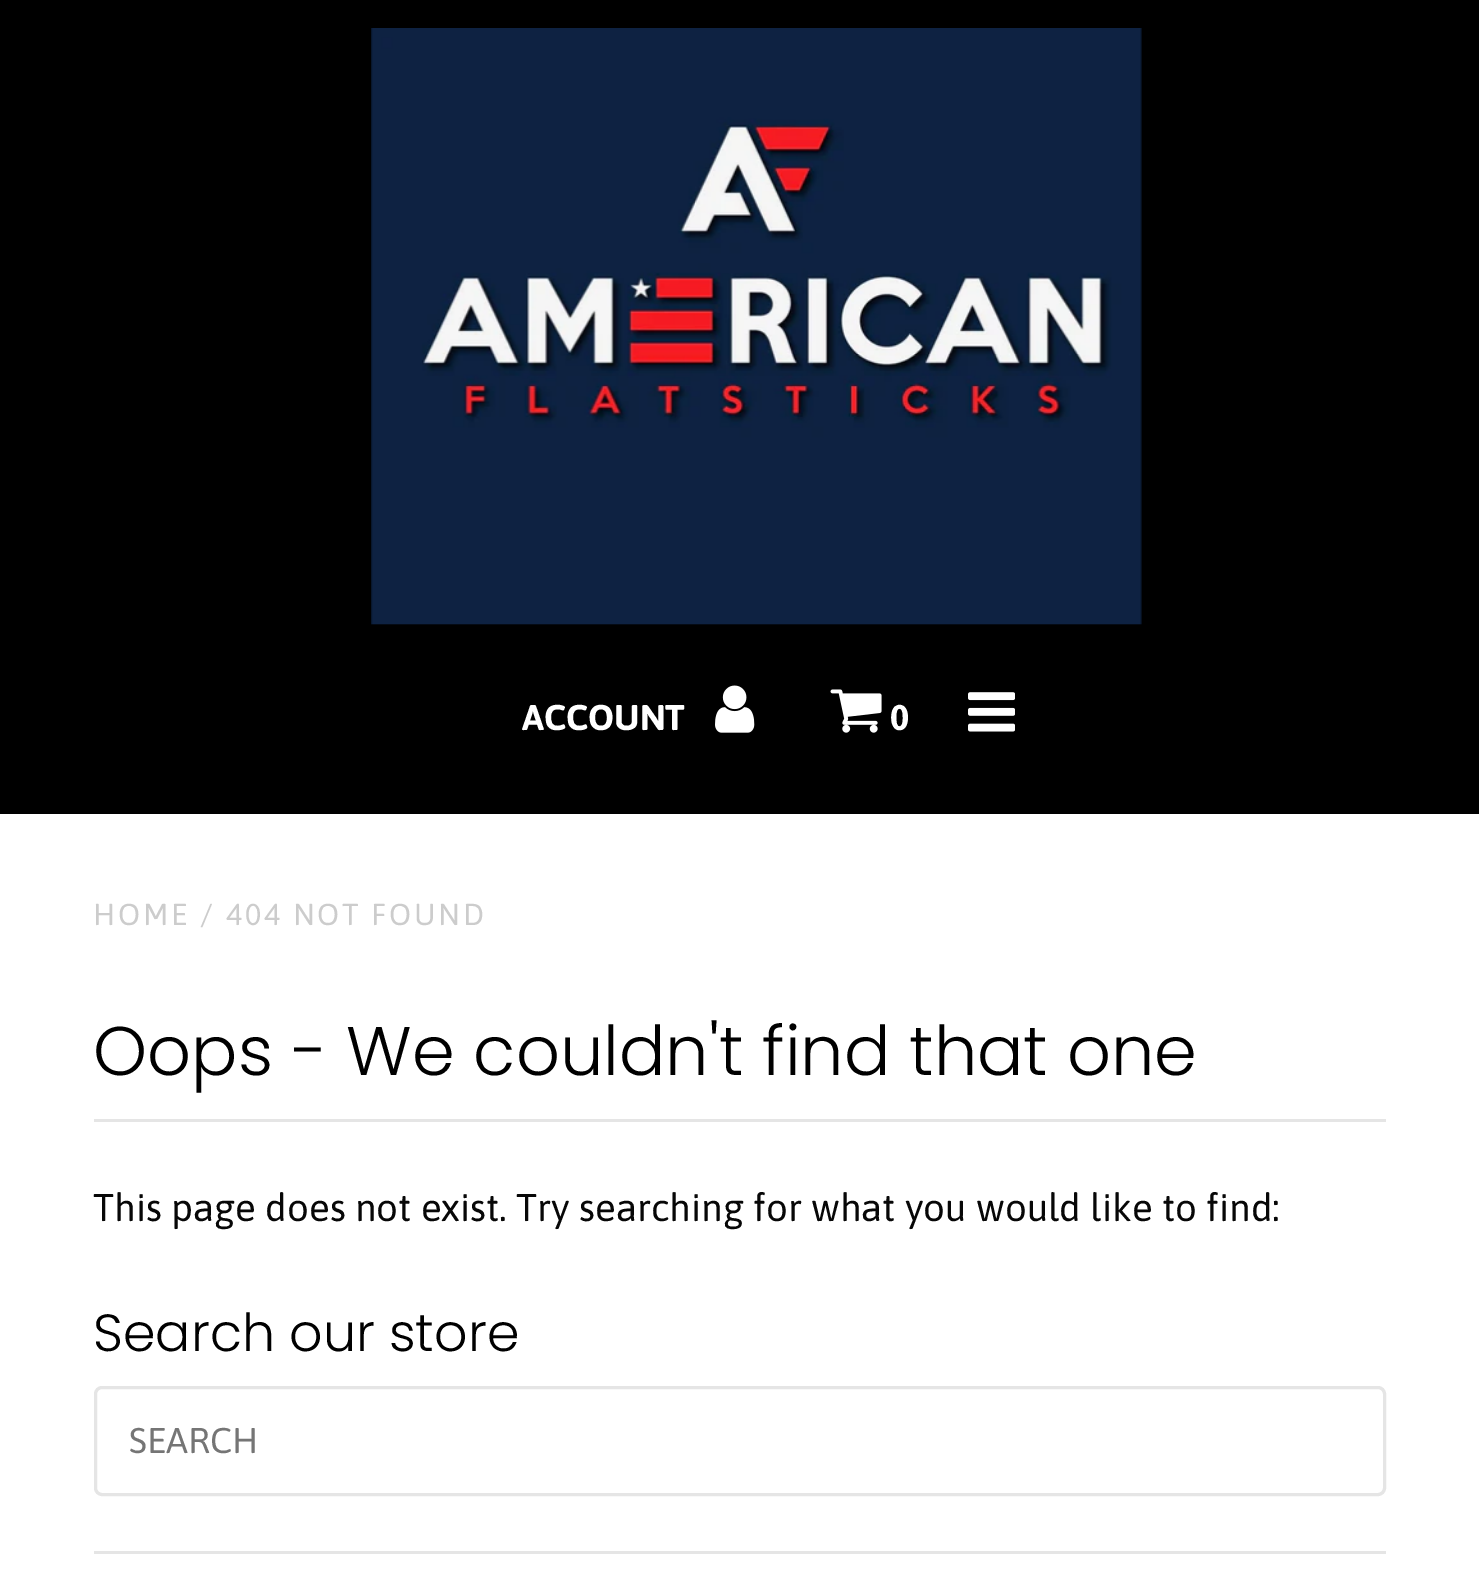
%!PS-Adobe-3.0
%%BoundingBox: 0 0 1479 1576
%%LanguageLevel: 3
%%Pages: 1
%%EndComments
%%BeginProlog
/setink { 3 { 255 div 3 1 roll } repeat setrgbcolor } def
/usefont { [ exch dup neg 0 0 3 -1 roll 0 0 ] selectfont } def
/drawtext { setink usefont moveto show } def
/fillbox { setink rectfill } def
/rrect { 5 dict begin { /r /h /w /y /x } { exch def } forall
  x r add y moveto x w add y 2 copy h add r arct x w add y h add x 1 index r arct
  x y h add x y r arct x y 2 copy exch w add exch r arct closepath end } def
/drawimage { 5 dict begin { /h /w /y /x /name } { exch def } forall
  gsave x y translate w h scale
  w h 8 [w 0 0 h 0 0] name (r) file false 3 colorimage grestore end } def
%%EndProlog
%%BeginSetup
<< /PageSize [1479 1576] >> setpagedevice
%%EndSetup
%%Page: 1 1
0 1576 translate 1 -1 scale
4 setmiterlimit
0 0 1479 1576 255 255 255 fillbox
0 0 1479 814 0 0 0 fillbox
(assets/img1.rgb) 371 28 771 597 drawimage
(ACCOUNT) 522 730 /Asap-Bold 35.75 255 255 255 drawtext
(assets/img2.rgb) 715 685 40 48 drawimage
(assets/img3.rgb) 830 689 52 44 drawimage
(0) 890 730 /Asap-Bold 35.75 255 255 255 drawtext
(assets/img4.rgb) 968 692 47 40 drawimage
/Asap-Regular 30.25 usefont
204 204 204 setink
93 925 moveto 2.75 0 (HOME / 404 NOT FOUND) ashow
94 1119 1292 3 229 229 229 fillbox
(Oops - We couldn't find that one) 93 1075 /Poppins-Light 68.75 0 0 0 drawtext
(This page does not exist. Try searching for what you would like to find:) 93 1221 /Asap-Regular 38.5 7 7 7 drawtext
94 1551 1292 3 229 229 229 fillbox
(Search our store) 93 1351 /Poppins-Light 52.25 0 0 0 drawtext
229 229 229 setink
3 setlinewidth
95.5 1387.5 1289 107 6.5 rrect stroke
(SEARCH) 129 1453 /Asap-Regular 35.75 117 117 117 drawtext
showpage
%%EOF
